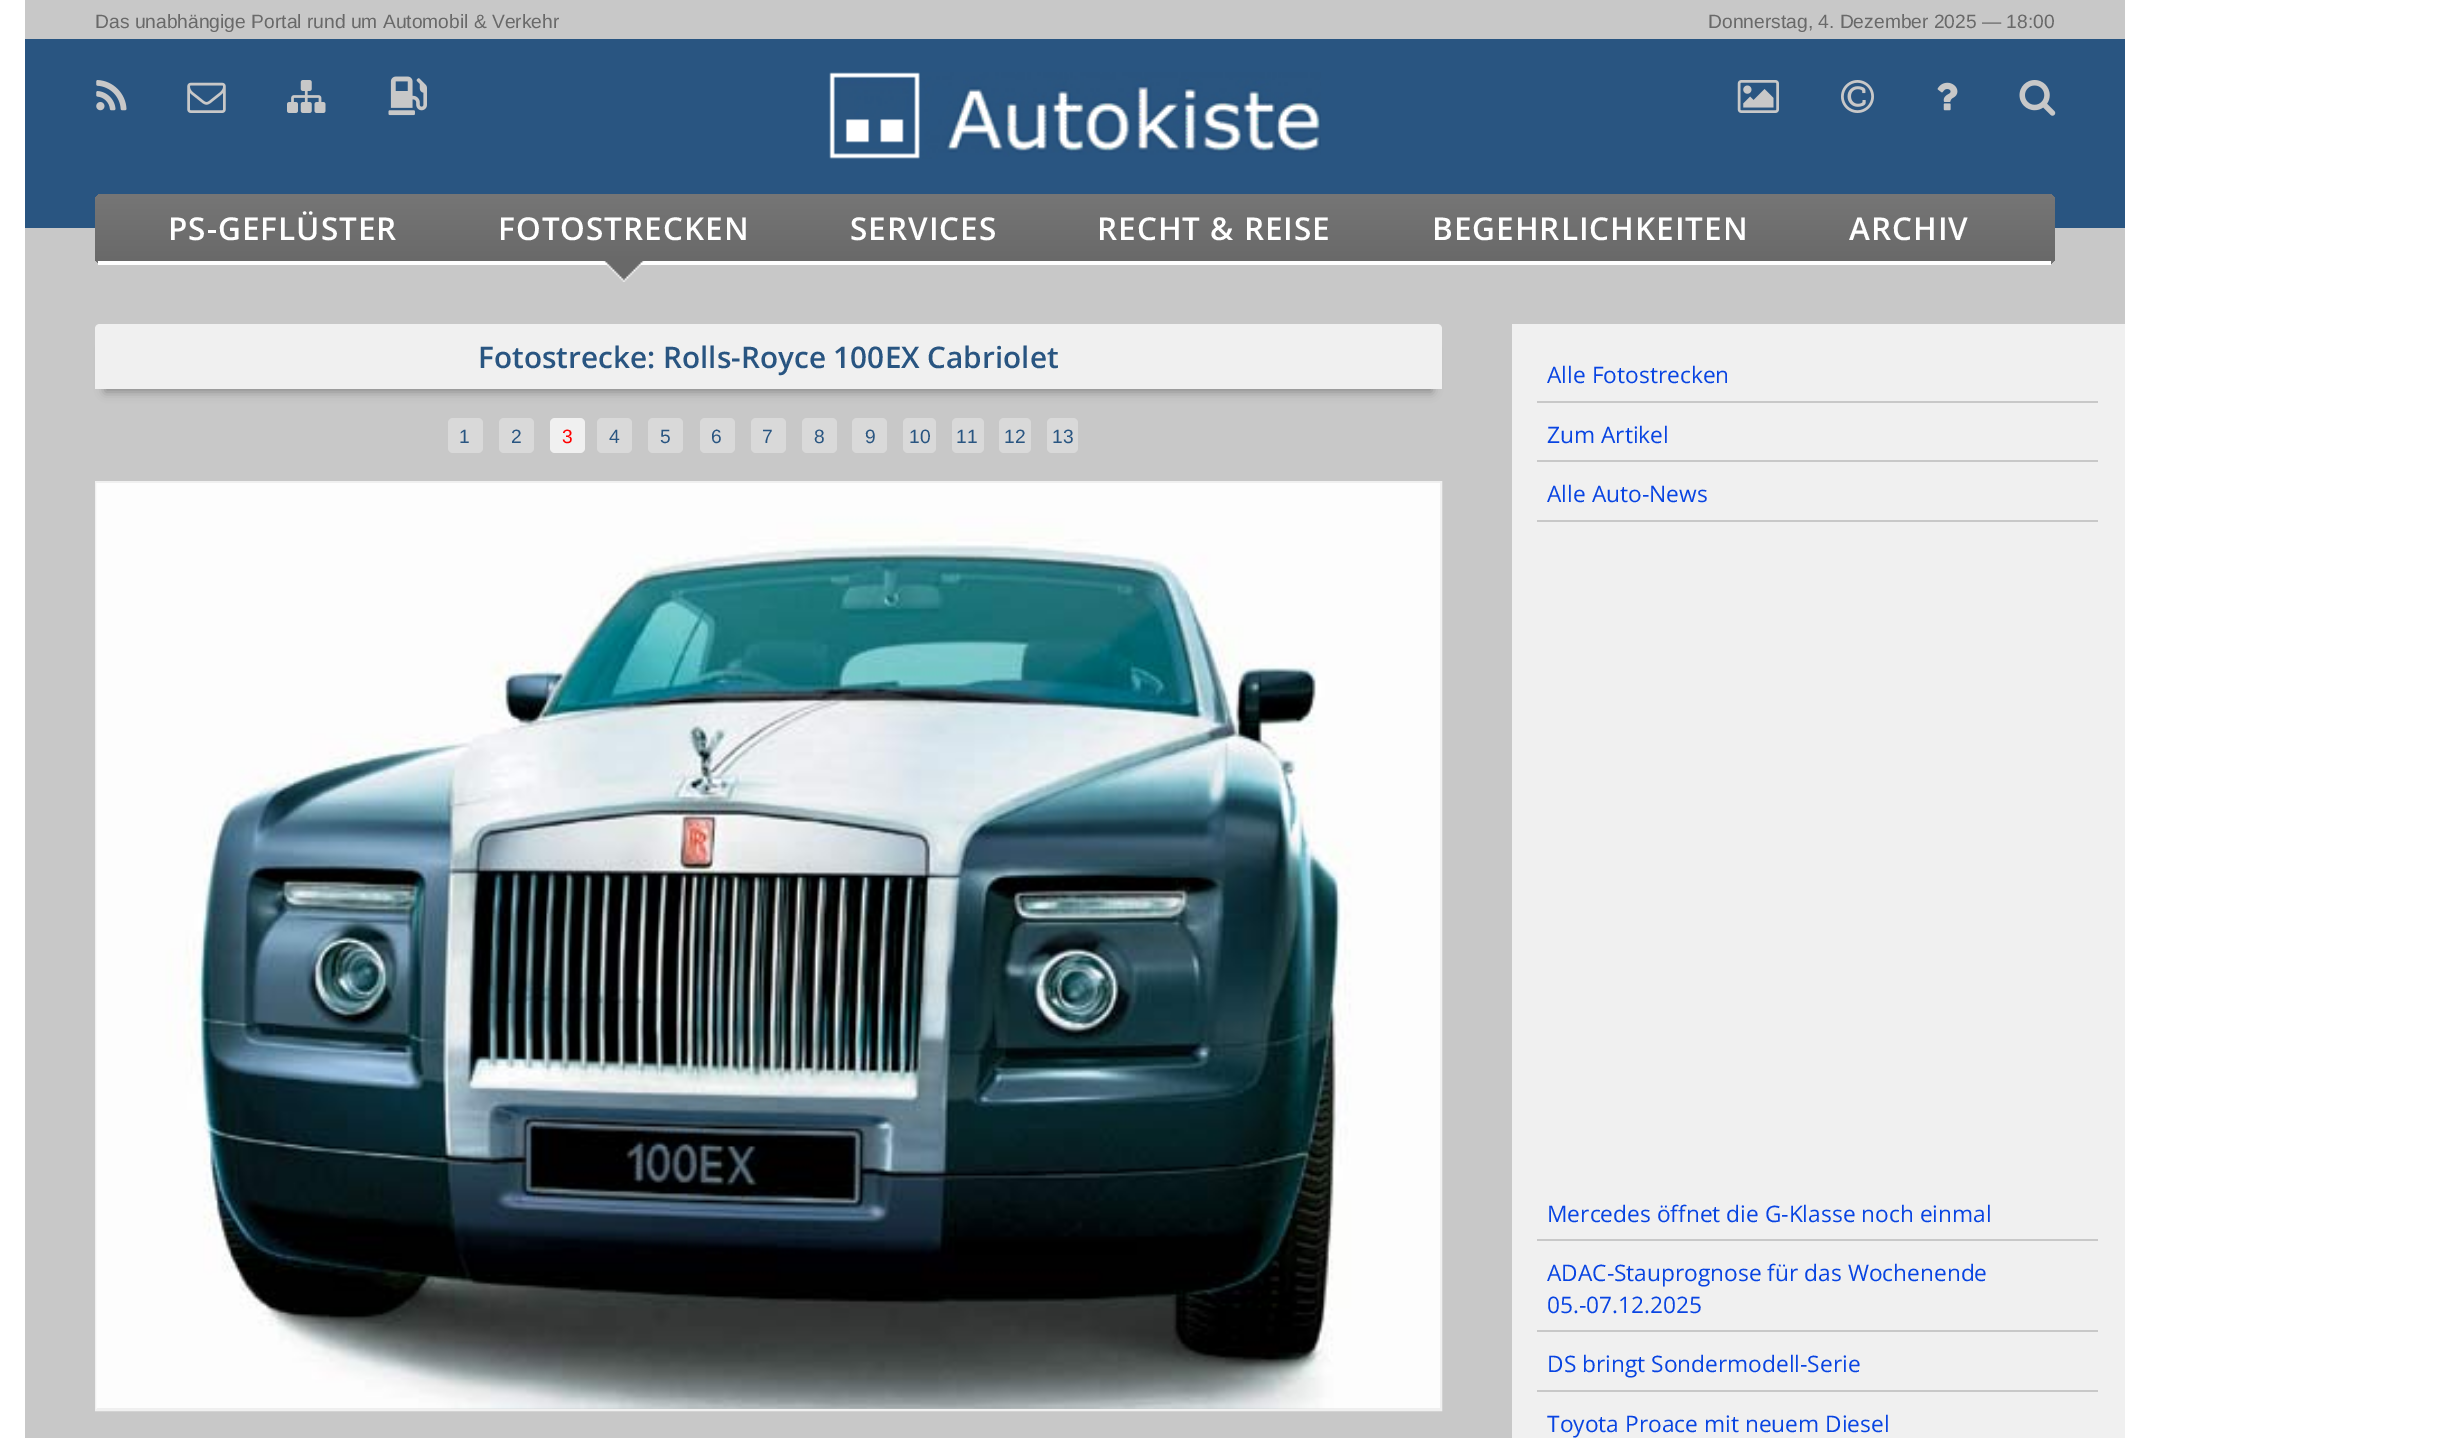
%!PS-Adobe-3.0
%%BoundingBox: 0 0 2446 1438
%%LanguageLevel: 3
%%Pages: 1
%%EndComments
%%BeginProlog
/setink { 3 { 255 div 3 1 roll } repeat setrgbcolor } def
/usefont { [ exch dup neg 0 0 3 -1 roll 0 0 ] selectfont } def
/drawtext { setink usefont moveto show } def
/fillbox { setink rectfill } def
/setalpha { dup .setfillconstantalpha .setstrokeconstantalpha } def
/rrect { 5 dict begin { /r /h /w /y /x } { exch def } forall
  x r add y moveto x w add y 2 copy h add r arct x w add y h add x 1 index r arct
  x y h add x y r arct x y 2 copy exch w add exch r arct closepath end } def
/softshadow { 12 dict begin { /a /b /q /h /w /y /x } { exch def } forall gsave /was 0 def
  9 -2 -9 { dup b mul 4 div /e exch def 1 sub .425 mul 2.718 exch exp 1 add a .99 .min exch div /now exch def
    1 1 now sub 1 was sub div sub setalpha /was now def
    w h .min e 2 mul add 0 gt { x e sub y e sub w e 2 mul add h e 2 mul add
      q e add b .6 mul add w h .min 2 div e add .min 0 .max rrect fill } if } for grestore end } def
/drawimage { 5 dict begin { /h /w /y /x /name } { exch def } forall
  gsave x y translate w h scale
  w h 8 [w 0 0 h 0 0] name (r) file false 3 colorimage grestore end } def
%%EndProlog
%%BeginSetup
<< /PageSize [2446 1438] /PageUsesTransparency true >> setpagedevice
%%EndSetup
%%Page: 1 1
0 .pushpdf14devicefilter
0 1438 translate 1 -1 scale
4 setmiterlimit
0 0 2446 1438 255 255 255 fillbox
25 0 2100 1438 200 200 200 fillbox
(Das unabhängige Portal rund um Automobil & Verkehr) 95 28 /LiberationSans-Regular 19.25 105 105 105 drawtext
(Donnerstag, 4. Dezember 2025 — 18:00) 1708 28 /LiberationSans-Regular 19.25 105 105 105 drawtext
25 39 2100 189 41 85 129 fillbox
(assets/img1.rgb) 96 80 31 31 drawimage
(assets/img2.rgb) 187 82 39 31 drawimage
(assets/img3.rgb) 287 80 39 33 drawimage
(assets/img4.rgb) 388 76 39 40 drawimage
(assets/img5.rgb) 829 72 492 87 drawimage
(assets/img6.rgb) 1737 80 42 33 drawimage
(assets/img7.rgb) 1841 80 33 33 drawimage
(assets/img8.rgb) 1937 82 21 29 drawimage
(assets/img9.rgb) 2019 80 37 36 drawimage
105 105 105 setink
95 194 1960 70 7 rrect fill
gsave
95 194 1960 70 7 rrect clip newpath
gsave 102 194 moveto 2048 194 lineto 2052 194 2055 197 2055 201 curveto 2055 261 lineto 95 261 lineto 95 201 lineto 95 197 98 194 102 194 curveto closepath clip newpath
<< /ShadingType 2 /ColorSpace /DeviceRGB /Coords [1075 194 1075 261] /Extend [true true] /Function << /FunctionType 2 /Domain [0 1] /C0 [0.463 0.463 0.463] /C1 [0.412 0.412 0.412] /N 1 >> >> shfill grestore
gsave 95 261 moveto 2055 261 lineto 2055 264 lineto 95 264 lineto closepath clip newpath
<< /ShadingType 2 /ColorSpace /DeviceRGB /Coords [1075 261 1075 327] /Extend [true true] /Function << /FunctionType 2 /Domain [0 1] /C0 [0.463 0.463 0.463] /C1 [0.412 0.412 0.412] /N 1 >> >> shfill grestore
grestore
98 261 1953 4 255 255 255 fillbox
/OpenSans-SemiBold 31.5 usefont
168 240 moveto 1 0 (PS-GEFLÜSTER) ashow
498 240 moveto 1 0 (FOTOSTRECKEN) ashow
850 240 moveto 1 0 (SERVICES) ashow
1097 240 moveto 1 0 (RECHT & REISE) ashow
1432 240 moveto 1 0 (BEGEHRLICHKEITEN) ashow
1849 240 moveto 1 0 (ARCHIV) ashow
(assets/img10.rgb) 603 261 42 21 drawimage
136 136 136 setink
105 348 1327 44 0 5 1 softshadow
240 240 240 setink
100 324 moveto 1437 324 lineto 1440 324 1442 326 1442 329 curveto 1442 389 lineto 95 389 lineto 95 329 lineto 95 326 97 324 100 324 curveto closepath fill
(Fotostrecke: Rolls-Royce 100EX Cabriolet) 478 368 /OpenSans-SemiBold 29.75 41 85 129 drawtext
217 217 217 setink
448 418 35 35 5 rrect fill
(1) 459 443 /LiberationSans-Regular 19.25 41 85 129 drawtext
217 217 217 setink
499 418 35 35 5 rrect fill
(2) 511 443 /LiberationSans-Regular 19.25 41 85 129 drawtext
240 240 240 setink
550 418 35 35 5 rrect fill
(3) 562 443 /LiberationSans-Regular 19.25 255 0 0 drawtext
217 217 217 setink
597 418 35 35 5 rrect fill
(4) 609 443 /LiberationSans-Regular 19.25 41 85 129 drawtext
217 217 217 setink
648 418 35 35 5 rrect fill
(5) 660 443 /LiberationSans-Regular 19.25 41 85 129 drawtext
217 217 217 setink
700 418 35 35 5 rrect fill
(6) 711 443 /LiberationSans-Regular 19.25 41 85 129 drawtext
217 217 217 setink
751 418 35 35 5 rrect fill
(7) 762 443 /LiberationSans-Regular 19.25 41 85 129 drawtext
217 217 217 setink
802 418 35 35 5 rrect fill
(8) 814 443 /LiberationSans-Regular 19.25 41 85 129 drawtext
217 217 217 setink
852 418 35 35 5 rrect fill
(9) 865 443 /LiberationSans-Regular 19.25 41 85 129 drawtext
217 217 217 setink
903 418 33 35 5 rrect fill
(10) 909 443 /LiberationSans-Regular 19.25 41 85 129 drawtext
217 217 217 setink
952 418 32 35 5 rrect fill
(11) 956 443 /LiberationSans-Regular 19.25 41 85 129 drawtext
217 217 217 setink
999 418 32 35 5 rrect fill
(12) 1004 443 /LiberationSans-Regular 19.25 41 85 129 drawtext
217 217 217 setink
1047 418 31 35 5 rrect fill
(13) 1052 443 /LiberationSans-Regular 19.25 41 85 129 drawtext
240 240 240 setink
2 setlinewidth
96 482 1345 928 rectstroke
(assets/img11.rgb) 96 483 1344 926 drawimage
1512 324 613 1114 240 240 240 fillbox
1537 401 561 2 200 200 200 fillbox
(Alle Fotostrecken) 1547 383 /OpenSans-Regular 22.75 8 68 226 drawtext
1537 460 561 2 200 200 200 fillbox
(Zum Artikel) 1547 443 /OpenSans-Regular 22.75 8 68 226 drawtext
1537 520 561 2 200 200 200 fillbox
(Alle Auto-News) 1547 502 /OpenSans-Regular 22.75 8 68 226 drawtext
1537 1239 561 2 200 200 200 fillbox
(Mercedes öffnet die G-Klasse noch einmal) 1547 1222 /OpenSans-Regular 22.75 8 68 226 drawtext
1537 1330 561 2 200 200 200 fillbox
(ADAC-Stauprognose für das Wochenende) 1547 1281 /OpenSans-Regular 22.75 8 68 226 drawtext
(05.-07.12.2025) 1547 1313 /OpenSans-Regular 22.75 8 68 226 drawtext
1537 1390 561 2 200 200 200 fillbox
(DS bringt Sondermodell-Serie) 1547 1372 /OpenSans-Regular 22.75 8 68 226 drawtext
(Toyota Proace mit neuem Diesel) 1547 1432 /OpenSans-Regular 22.75 8 68 226 drawtext
.poppdf14devicefilter showpage
%%EOF
